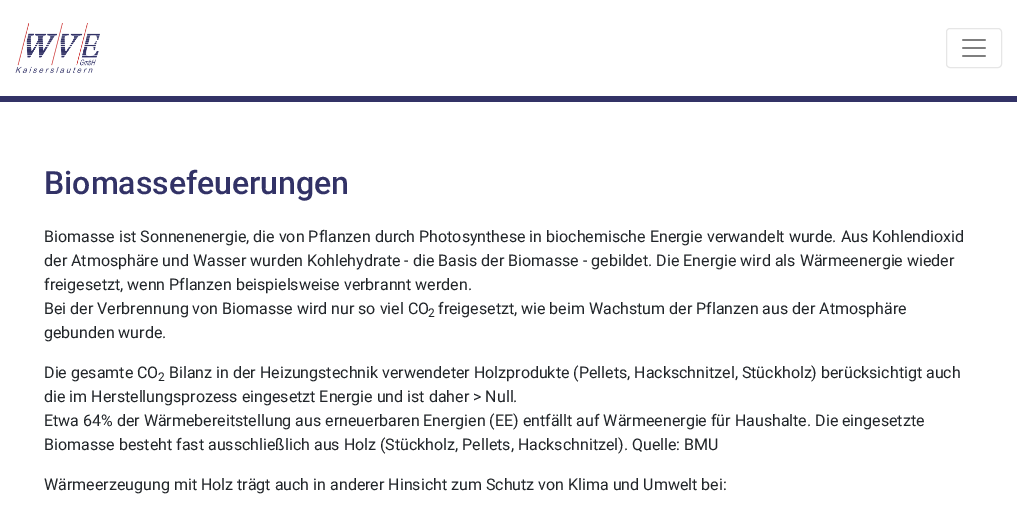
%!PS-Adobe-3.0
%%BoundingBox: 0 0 1017 514
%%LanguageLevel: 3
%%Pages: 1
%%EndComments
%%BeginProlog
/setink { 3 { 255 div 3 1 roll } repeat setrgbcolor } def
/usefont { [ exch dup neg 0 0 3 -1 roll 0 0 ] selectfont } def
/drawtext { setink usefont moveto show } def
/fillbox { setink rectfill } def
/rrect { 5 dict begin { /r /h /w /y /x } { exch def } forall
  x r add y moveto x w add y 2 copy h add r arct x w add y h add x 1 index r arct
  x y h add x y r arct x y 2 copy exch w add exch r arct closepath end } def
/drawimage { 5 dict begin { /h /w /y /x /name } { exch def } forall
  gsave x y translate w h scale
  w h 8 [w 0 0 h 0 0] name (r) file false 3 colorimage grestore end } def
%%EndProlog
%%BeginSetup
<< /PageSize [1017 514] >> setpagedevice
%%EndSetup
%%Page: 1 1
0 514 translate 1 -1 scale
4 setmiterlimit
0 0 1017 514 255 255 255 fillbox
0 96 1017 6 50 50 102 fillbox
(assets/img1.rgb) 15 23 85 50 drawimage
230 230 230 setink
946.5 28.5 55 39 3.5 rrect stroke
(assets/img2.rgb) 962 39 24 18 drawimage
(Biomassefeuerungen) 44 194 /Roboto-Medium 32 50 50 102 drawtext
(Biomasse ist Sonnenenergie, die von Pflanzen durch Photosynthese in biochemische Energie verwandelt wurde. Aus Kohlendioxid) 44 242 /Roboto-Regular 16 33 37 41 drawtext
(der Atmosphäre und Wasser wurden Kohlehydrate - die Basis der Biomasse - gebildet. Die Energie wird als Wärmeenergie wieder) 44 266 /Roboto-Regular 16 33 37 41 drawtext
(freigesetzt, wenn Pflanzen beispielsweise verbrannt werden.) 44 290 /Roboto-Regular 16 33 37 41 drawtext
(Bei der Verbrennung von Biomasse wird nur so viel CO) 44 314 /Roboto-Regular 16 33 37 41 drawtext
(2) 428 317 /Roboto-Regular 12 33 37 41 drawtext
(freigesetzt, wie beim Wachstum der Pflanzen aus der Atmosphäre) 438 314 /Roboto-Regular 16 33 37 41 drawtext
(gebunden wurde.) 44 338 /Roboto-Regular 16 33 37 41 drawtext
(Die gesamte CO) 44 378 /Roboto-Regular 16 33 37 41 drawtext
(2) 158 381 /Roboto-Regular 12 33 37 41 drawtext
(Bilanz in der Heizungstechnik verwendeter Holzprodukte \(Pellets, Hackschnitzel, Stückholz\) berücksichtigt auch) 169 378 /Roboto-Regular 16 33 37 41 drawtext
(die im Herstellungsprozess eingesetzt Energie und ist daher > Null.) 44 402 /Roboto-Regular 16 33 37 41 drawtext
(Etwa 64% der Wärmebereitstellung aus erneuerbaren Energien \(EE\) entfällt auf Wärmeenergie für Haushalte. Die eingesetzte) 44 426 /Roboto-Regular 16 33 37 41 drawtext
(Biomasse besteht fast ausschließlich aus Holz \(Stückholz, Pellets, Hackschnitzel\). Quelle: BMU) 44 450 /Roboto-Regular 16 33 37 41 drawtext
(Wärmeerzeugung mit Holz trägt auch in anderer Hinsicht zum Schutz von Klima und Umwelt bei:) 44 490 /Roboto-Regular 16 33 37 41 drawtext
showpage
%%EOF
